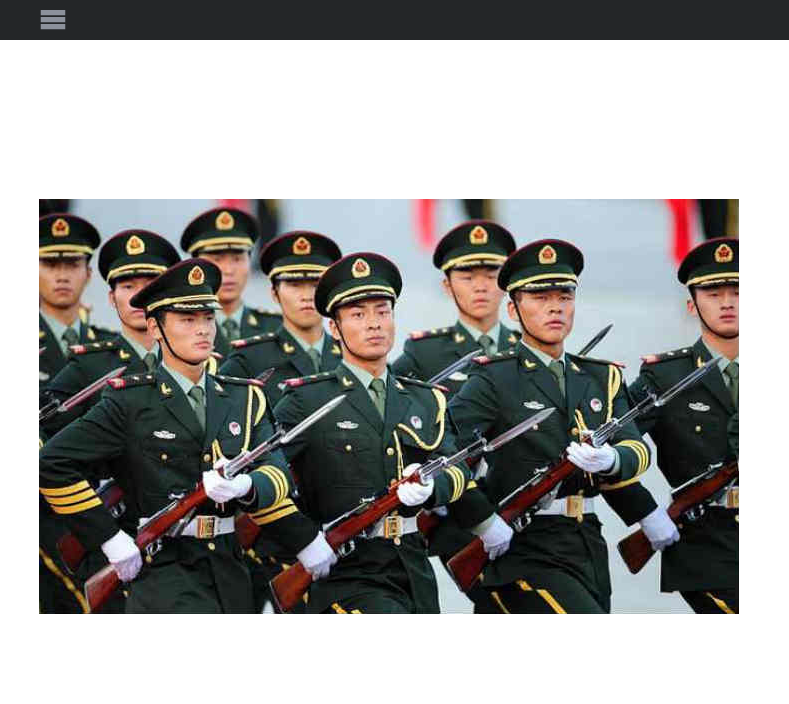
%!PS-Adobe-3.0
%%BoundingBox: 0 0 789 704
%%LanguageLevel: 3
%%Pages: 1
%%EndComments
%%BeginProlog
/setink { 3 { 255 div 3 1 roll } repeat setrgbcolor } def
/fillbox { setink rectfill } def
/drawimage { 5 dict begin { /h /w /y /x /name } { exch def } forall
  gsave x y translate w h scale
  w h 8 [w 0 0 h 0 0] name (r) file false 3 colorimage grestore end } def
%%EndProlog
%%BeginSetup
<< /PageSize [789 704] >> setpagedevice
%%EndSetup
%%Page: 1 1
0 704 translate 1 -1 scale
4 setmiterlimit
0 0 789 704 255 255 255 fillbox
0 0 789 40 36 38 40 fillbox
(assets/img1.rgb) 40 10 26 20 drawimage
(assets/img2.rgb) 39 199 700 415 drawimage
showpage
%%EOF
